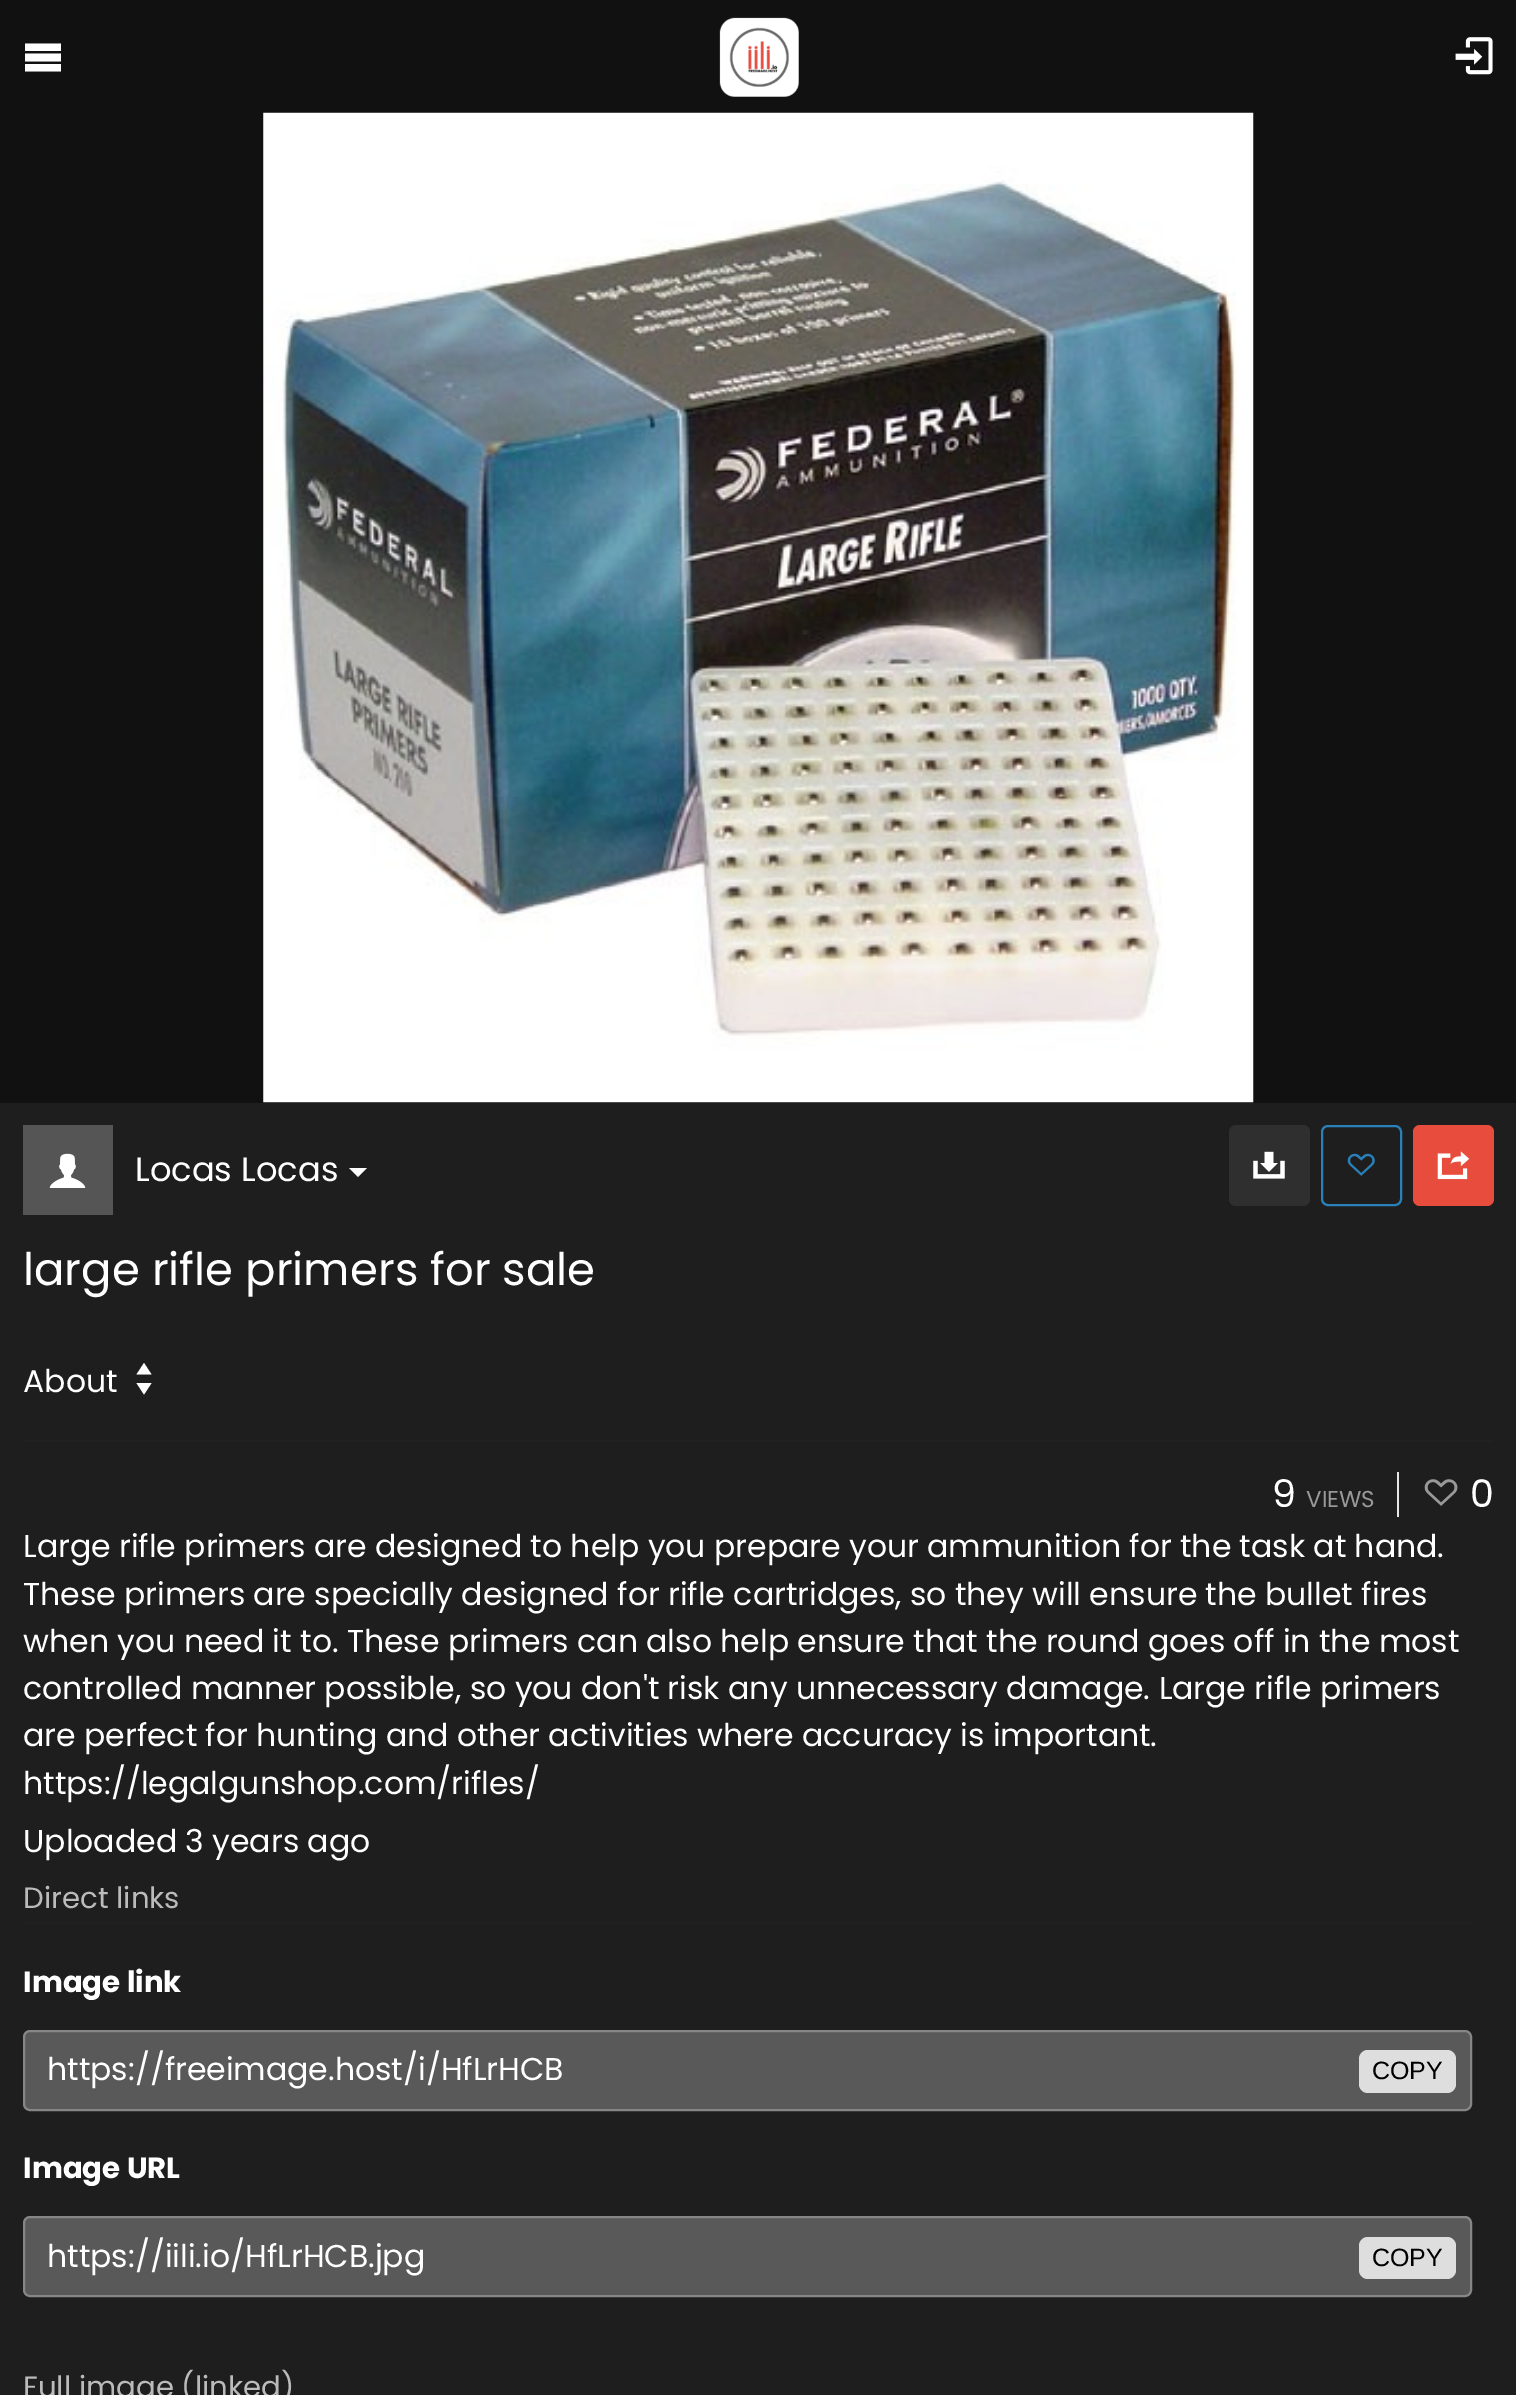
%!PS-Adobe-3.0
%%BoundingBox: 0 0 1516 2395
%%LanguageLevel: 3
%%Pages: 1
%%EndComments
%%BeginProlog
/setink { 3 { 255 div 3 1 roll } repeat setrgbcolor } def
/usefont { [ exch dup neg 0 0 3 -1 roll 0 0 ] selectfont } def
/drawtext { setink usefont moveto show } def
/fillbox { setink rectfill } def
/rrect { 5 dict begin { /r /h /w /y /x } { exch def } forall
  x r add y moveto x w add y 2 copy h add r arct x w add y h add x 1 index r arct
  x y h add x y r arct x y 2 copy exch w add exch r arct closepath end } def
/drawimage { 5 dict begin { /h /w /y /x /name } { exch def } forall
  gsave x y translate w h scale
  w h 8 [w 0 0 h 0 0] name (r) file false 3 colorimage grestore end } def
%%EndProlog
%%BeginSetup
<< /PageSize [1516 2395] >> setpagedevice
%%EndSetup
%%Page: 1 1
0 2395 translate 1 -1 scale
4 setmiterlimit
0 0 1516 2395 30 30 30 fillbox
0 0 1516 1103 17 17 17 fillbox
255 255 255 setink
25 43.5 moveto 61 43.5 lineto 61 51 lineto 25 51 lineto closepath 25 53.5 moveto 61 53.5 lineto 61 61.5 lineto 25 61.5 lineto closepath 25 64 moveto 61 64 lineto 61 71.5 lineto 25 71.5 lineto closepath fill
(assets/img1.rgb) 719 17 80 80 drawimage
(assets/img2.rgb) 1455 37 38 38 drawimage
(assets/img3.rgb) 263 112 991 991 drawimage
23 1125 90 90 85 85 85 fillbox
(assets/img4.rgb) 49 1153 37 35 drawimage
(Locas Locas) 135 1181 /Poppins-Regular 33.75 255 255 255 drawtext
349 1168 moveto 367 1168 lineto 358 1177 lineto closepath fill
47 47 47 setink
1229 1125 81 81 7 rrect fill
(assets/img5.rgb) 1253 1151 32 28 drawimage
42 128 185 setink
2 setlinewidth
1322 1126 79 79 6 rrect stroke
(assets/img6.rgb) 1347 1153 28 23 drawimage
232 76 61 setink
1413 1125 81 81 7 rrect fill
(assets/img7.rgb) 1437 1151 33 29 drawimage
(large rifle primers for sale) 23 1285 /Poppins-Regular 45 255 255 255 drawtext
23 1440 1471 2 33 33 33 fillbox
(About) 23 1392 /Poppins-Regular 31.5 255 255 255 drawtext
144 1363 moveto 136.5 1374.5 lineto 151.5 1374.5 lineto closepath 144 1394.5 moveto 151.5 1383 lineto 136.5 1383 lineto closepath fill
(9) 1272 1507 /Poppins-Regular 38 255 255 255 drawtext
(VIEWS) 1306 1507 /Poppins-Regular 23 153 153 153 drawtext
1397 1472 2 45 229 229 229 fillbox
(assets/img8.rgb) 1424 1479 34 27 drawimage
(0) 1470 1507 /Poppins-Regular 38 255 255 255 drawtext
(Large rifle primers are designed to help you prepare your ammunition for the task at hand.) 23 1557 /Poppins-Regular 31.5 255 255 255 drawtext
(These primers are specially designed for rifle cartridges, so they will ensure the bullet fires) 23 1605 /Poppins-Regular 31.5 255 255 255 drawtext
(when you need it to. These primers can also help ensure that the round goes off in the most) 23 1652 /Poppins-Regular 31.5 255 255 255 drawtext
(controlled manner possible, so you don't risk any unnecessary damage. Large rifle primers) 23 1699 /Poppins-Regular 31.5 255 255 255 drawtext
(are perfect for hunting and other activities where accuracy is important.) 23 1746 /Poppins-Regular 31.5 255 255 255 drawtext
(https://legalgunshop.com/rifles/) 23 1794 /Poppins-Regular 31.5 255 255 255 drawtext
(Uploaded 3 years ago) 23 1852 /Poppins-Regular 31.5 255 255 255 drawtext
23 1922 1449 2 33 33 33 fillbox
(Direct links) 23 1908 /Poppins-Regular 29.25 187 187 187 drawtext
(Image link) 23 1992 /Poppins-Bold 29.25 255 255 255 drawtext
89 89 89 setink
24 2031 1447 79 6 rrect gsave fill grestore
134 134 134 setink
stroke
(https://freeimage.host/i/HfLrHCB) 47 2080 /Poppins-Regular 31.5 255 255 255 drawtext
222 222 222 setink
1359 2050 97 43 9 rrect fill
(COPY) 1372 2079 /LiberationSans-Regular 25 0 0 0 drawtext
(Image URL) 23 2178 /Poppins-Bold 29.25 255 255 255 drawtext
89 89 89 setink
24 2217 1447 79 6 rrect gsave fill grestore
134 134 134 setink
stroke
(https://iili.io/HfLrHCB.jpg) 47 2267 /Poppins-Regular 31.5 255 255 255 drawtext
222 222 222 setink
1359 2237 97 42 9 rrect fill
(COPY) 1372 2266 /LiberationSans-Regular 25 0 0 0 drawtext
(Full image \(linked\)) 23 2397 /Poppins-Regular 29.25 187 187 187 drawtext
showpage
%%EOF
